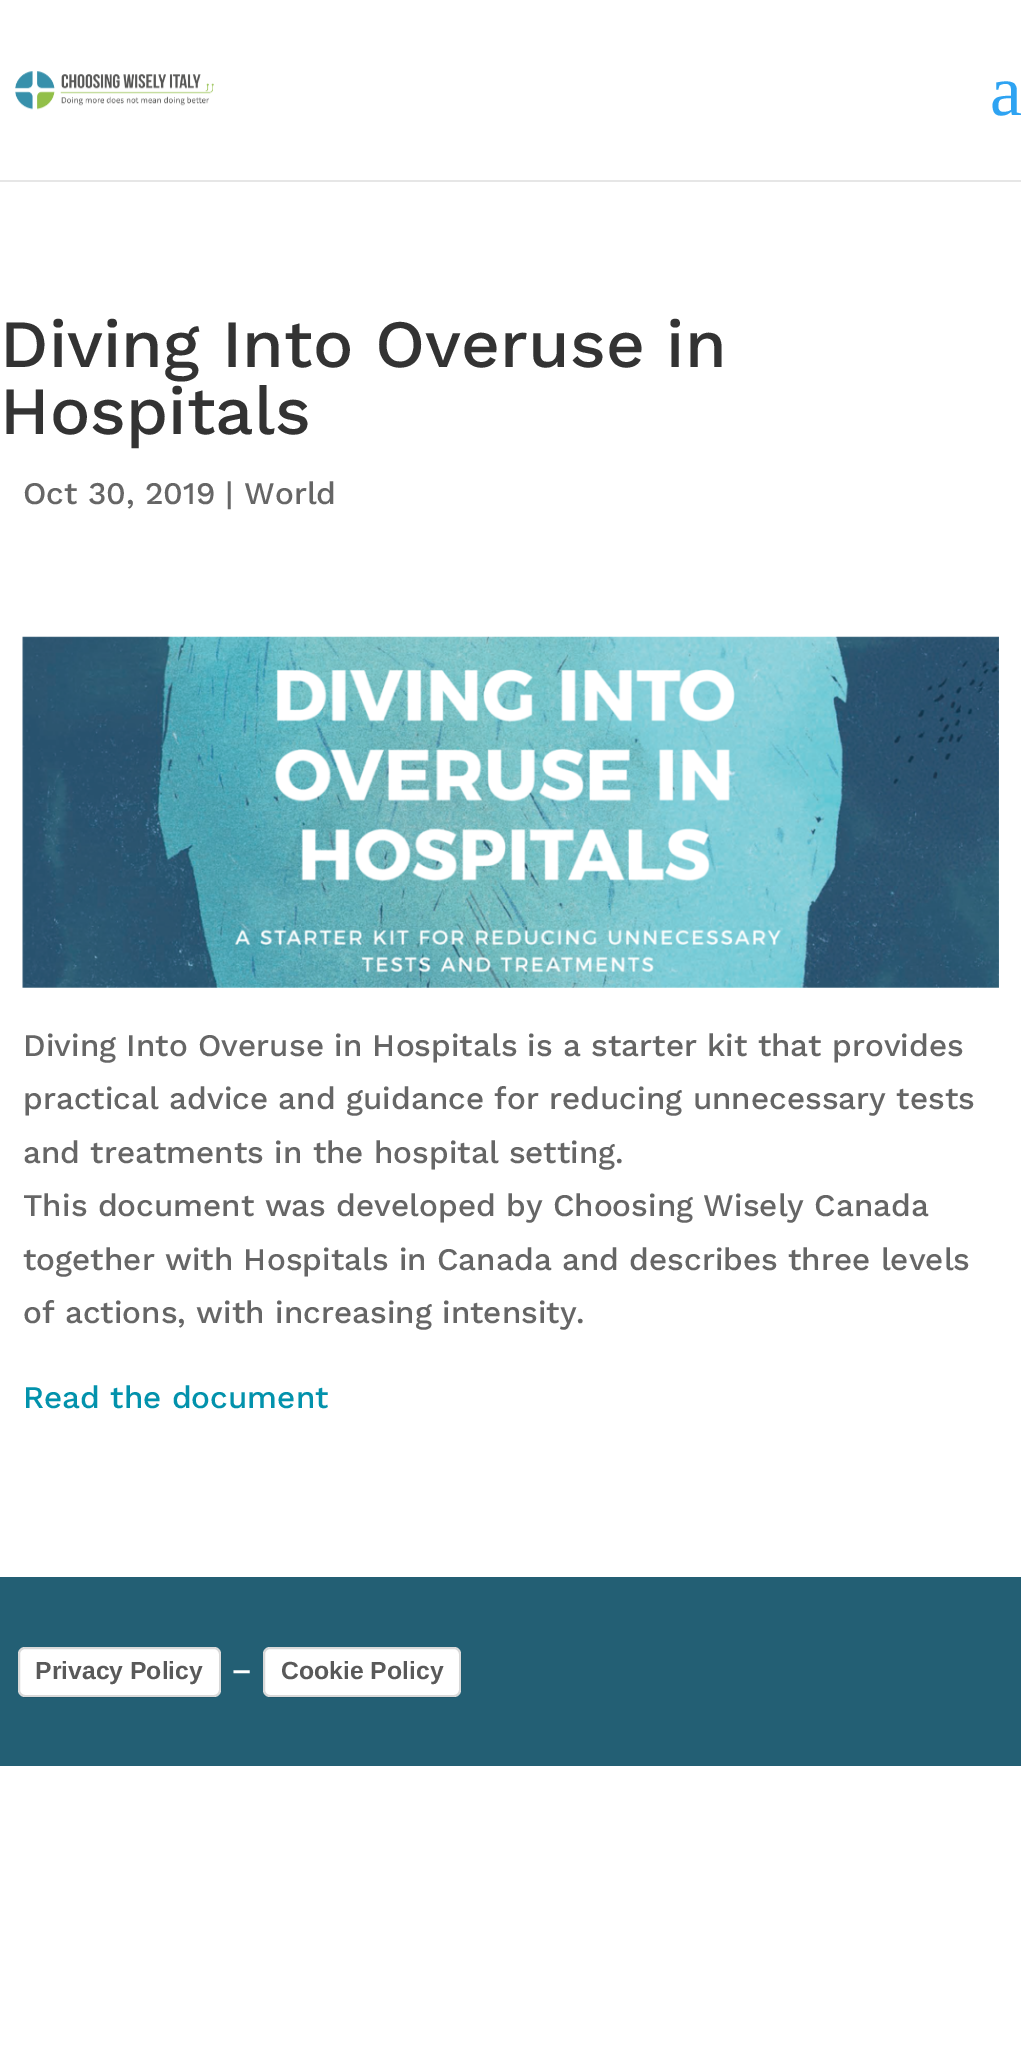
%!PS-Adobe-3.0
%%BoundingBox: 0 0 1021 2056
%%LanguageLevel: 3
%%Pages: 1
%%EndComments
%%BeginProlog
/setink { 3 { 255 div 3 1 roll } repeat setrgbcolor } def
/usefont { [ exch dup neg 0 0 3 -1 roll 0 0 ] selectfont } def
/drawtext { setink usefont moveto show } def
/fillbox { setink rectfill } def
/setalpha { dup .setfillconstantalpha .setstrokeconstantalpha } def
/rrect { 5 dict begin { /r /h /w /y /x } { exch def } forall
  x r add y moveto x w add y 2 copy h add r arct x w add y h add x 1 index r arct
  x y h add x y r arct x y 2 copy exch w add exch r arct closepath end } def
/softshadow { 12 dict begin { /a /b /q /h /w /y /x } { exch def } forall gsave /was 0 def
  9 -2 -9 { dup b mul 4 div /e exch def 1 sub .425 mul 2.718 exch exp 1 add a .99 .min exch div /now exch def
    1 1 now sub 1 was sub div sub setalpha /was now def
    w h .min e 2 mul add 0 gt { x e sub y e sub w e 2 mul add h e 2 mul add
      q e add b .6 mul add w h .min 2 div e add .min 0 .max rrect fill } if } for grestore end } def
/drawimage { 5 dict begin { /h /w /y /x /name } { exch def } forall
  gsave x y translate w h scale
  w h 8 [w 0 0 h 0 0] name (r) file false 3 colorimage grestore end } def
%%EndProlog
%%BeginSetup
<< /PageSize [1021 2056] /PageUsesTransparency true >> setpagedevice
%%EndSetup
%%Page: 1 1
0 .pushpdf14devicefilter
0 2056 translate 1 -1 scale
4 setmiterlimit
0 0 1021 2056 255 255 255 fillbox
230 230 230 setink
0 180 moveto 0 182 lineto 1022 182 lineto 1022 2 lineto 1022 180 lineto closepath fill
(assets/img1.rgb) 15 71 199 39 drawimage
(a) 990 115 /LiberationSerif-Regular 72 46 163 242 drawtext
(Diving Into Overuse in) 0 367 /WorkSans-Medium 67.5 51 51 51 drawtext
(Hospitals) 0 434 /WorkSans-Medium 67.5 51 51 51 drawtext
(Oct 30, 2019 | World) 23 504 /WorkSans-Medium 31.5 102 102 102 drawtext
(assets/img2.rgb) 22 636 977 352 drawimage
(Diving Into Overuse in Hospitals is a starter kit that provides) 23 1056 /WorkSans-Medium 31.5 102 102 102 drawtext
(practical advice and guidance for reducing unnecessary tests) 23 1109 /WorkSans-Medium 31.5 102 102 102 drawtext
(and treatments in the hospital setting.) 23 1163 /WorkSans-Medium 31.5 102 102 102 drawtext
(This document was developed by Choosing Wisely Canada) 23 1216 /WorkSans-Medium 31.5 102 102 102 drawtext
(together with Hospitals in Canada and describes three levels) 23 1270 /WorkSans-Medium 31.5 102 102 102 drawtext
(of actions, with increasing intensity.) 23 1323 /WorkSans-Medium 31.5 102 102 102 drawtext
(Read the document) 23 1408 /WorkSans-Medium 31.5 2 146 172 drawtext
0 1577 1021 189 35 95 116 fillbox
0 0 0 setink
20 1652 198 45 5 1 0.15 softshadow
255 255 255 setink
18 1647 203 50 7 rrect fill
0.15 setalpha
0 0 0 setink
2 setlinewidth
19 1648 201 48 6 rrect stroke
1 setalpha
(Privacy Policy) 35 1679 /LiberationSans-Bold 24.75 89 89 89 drawtext
(–) 231 1680 /WorkSans-Medium 31.5 255 255 255 drawtext
0 0 0 setink
266 1652 193 45 5 1 0.15 softshadow
255 255 255 setink
263 1647 198 50 7 rrect fill
0.15 setalpha
0 0 0 setink
264 1648 196 48 6 rrect stroke
1 setalpha
(Cookie Policy) 281 1679 /LiberationSans-Bold 24.75 89 89 89 drawtext
.poppdf14devicefilter showpage
%%EOF
